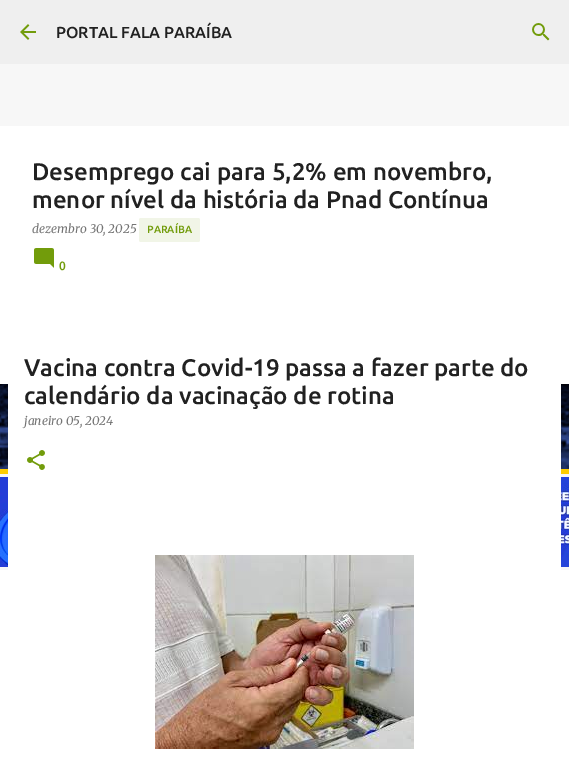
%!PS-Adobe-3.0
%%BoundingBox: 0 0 569 757
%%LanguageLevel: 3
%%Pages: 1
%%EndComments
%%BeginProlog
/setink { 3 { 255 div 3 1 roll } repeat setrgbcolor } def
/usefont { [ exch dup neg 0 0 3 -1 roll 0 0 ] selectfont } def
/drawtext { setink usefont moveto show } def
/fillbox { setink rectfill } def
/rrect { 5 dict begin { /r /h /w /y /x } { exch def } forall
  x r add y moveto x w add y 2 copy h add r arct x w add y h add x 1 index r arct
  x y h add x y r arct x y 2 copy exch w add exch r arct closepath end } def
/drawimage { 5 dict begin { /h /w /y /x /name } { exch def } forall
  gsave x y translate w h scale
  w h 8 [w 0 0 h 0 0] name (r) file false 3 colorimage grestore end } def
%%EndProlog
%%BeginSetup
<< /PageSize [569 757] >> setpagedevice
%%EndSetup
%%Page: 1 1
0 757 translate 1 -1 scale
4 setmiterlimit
0 0 569 757 247 247 247 fillbox
0 0 569 64 239 239 239 fillbox
(assets/img1.rgb) 20 24 16 16 drawimage
(PORTAL FALA PARAÍBA) 56 38 /Ubuntu-Medium 16 33 33 33 drawtext
(assets/img2.rgb) 532 23 18 18 drawimage
0 126 569 258 255 255 255 fillbox
(Desemprego cai para 5,2% em novembro,) 32 180 /Ubuntu-Medium 24 33 33 33 drawtext
(menor nível da história da Pnad Contínua) 32 208 /Ubuntu-Medium 24 33 33 33 drawtext
(dezembro 30, 2025) 32 233 /Merriweather-Italic 12 117 117 117 drawtext
241 245 231 setink
139 218 61 24 2 rrect fill
(PARAÍBA) 147 233 /Ubuntu-Medium 10.5 114 156 11 drawtext
(assets/img3.rgb) 34 248 20 20 drawimage
(0) 59 270 /Ubuntu-Medium 12 114 156 11 drawtext
(assets/img4.rgb) 0 384 569 90 drawimage
(assets/img5.rgb) 0 477 569 90 drawimage
0 570 569 187 255 255 255 fillbox
8 384 553 186 255 255 255 fillbox
(Vacina contra Covid-19 passa a fazer parte do) 24 376 /Ubuntu-Medium 24 33 33 33 drawtext
(calendário da vacinação de rotina) 24 404 /Ubuntu-Medium 24 33 33 33 drawtext
(janeiro 05, 2024) 24 425 /Merriweather-Italic 12 117 117 117 drawtext
(assets/img6.rgb) 27 450 18 20 drawimage
(assets/img7.rgb) 155 555 259 194 drawimage
showpage
%%EOF
